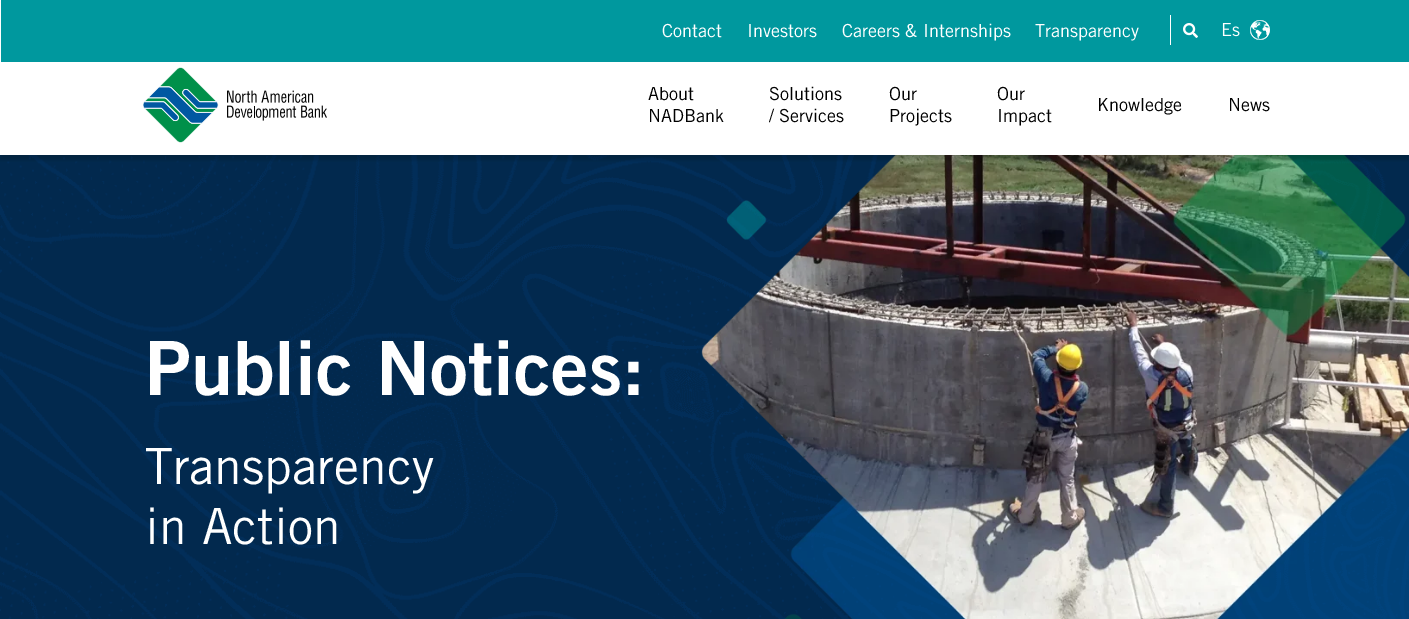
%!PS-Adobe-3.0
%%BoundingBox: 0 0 1409 619
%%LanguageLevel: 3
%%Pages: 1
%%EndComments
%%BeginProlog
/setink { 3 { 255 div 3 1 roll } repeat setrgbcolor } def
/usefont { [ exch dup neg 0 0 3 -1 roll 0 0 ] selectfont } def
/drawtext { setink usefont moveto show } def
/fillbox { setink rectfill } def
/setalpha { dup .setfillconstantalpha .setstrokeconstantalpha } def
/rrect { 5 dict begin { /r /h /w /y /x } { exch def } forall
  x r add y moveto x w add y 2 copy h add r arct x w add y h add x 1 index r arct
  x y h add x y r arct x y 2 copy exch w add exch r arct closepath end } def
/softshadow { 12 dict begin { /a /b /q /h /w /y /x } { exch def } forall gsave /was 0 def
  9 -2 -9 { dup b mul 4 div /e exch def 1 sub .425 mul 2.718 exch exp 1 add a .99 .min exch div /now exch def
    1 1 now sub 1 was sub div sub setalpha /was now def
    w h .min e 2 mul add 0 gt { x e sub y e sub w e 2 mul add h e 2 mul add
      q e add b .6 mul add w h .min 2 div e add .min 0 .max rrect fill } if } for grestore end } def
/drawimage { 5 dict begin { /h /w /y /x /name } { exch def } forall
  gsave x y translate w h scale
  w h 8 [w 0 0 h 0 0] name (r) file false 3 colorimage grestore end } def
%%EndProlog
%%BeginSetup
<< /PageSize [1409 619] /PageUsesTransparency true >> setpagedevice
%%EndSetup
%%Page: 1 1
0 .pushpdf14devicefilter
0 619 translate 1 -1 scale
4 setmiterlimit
0 0 1409 619 255 255 255 fillbox
(assets/img5.rgb) 0 155 1409 464 drawimage
(assets/img6.rgb) 701 155 708 464 drawimage
0 0 0 setink
0 5 1409 155 0 1.5 0.16 softshadow
0 3 1409 152 255 255 255 fillbox
1 0 1408 62 0 152 158 fillbox
1170 15 1 30 255 255 255 fillbox
(assets/img1.rgb) 1183 23 15 15 drawimage
(assets/img2.rgb) 1222 23 18 14 drawimage
(assets/img3.rgb) 1250 20 20 20 drawimage
(assets/img4.rgb) 143 67 184 76 drawimage
(Contact) 662 37 /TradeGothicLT-Regular 18 255 255 255 drawtext
(Investors) 747 37 /TradeGothicLT-Regular 18 255 255 255 drawtext
(Careers & Internships) 842 37 /TradeGothicLT-Regular 18 255 255 255 drawtext
(Transparency) 1035 37 /TradeGothicLT-Regular 18 255 255 255 drawtext
(About) 648 100 /TradeGothicLT-Regular 18 0 0 0 drawtext
(NADBank) 648 122 /TradeGothicLT-Regular 18 0 0 0 drawtext
(Solutions) 769 100 /TradeGothicLT-Regular 18 0 0 0 drawtext
(/ Services) 769 122 /TradeGothicLT-Regular 18 0 0 0 drawtext
(Our) 889 100 /TradeGothicLT-Regular 18 0 0 0 drawtext
(Projects) 889 122 /TradeGothicLT-Regular 18 0 0 0 drawtext
(Our) 997 100 /TradeGothicLT-Regular 18 0 0 0 drawtext
(Impact) 997 122 /TradeGothicLT-Regular 18 0 0 0 drawtext
(Knowledge) 1097 111 /TradeGothicLT-Regular 18 0 0 0 drawtext
(News) 1228 111 /TradeGothicLT-Regular 18 0 0 0 drawtext
(Public Notices:) 145 395 /TradeGothicLT-Bold 75 255 255 255 drawtext
(Transparency) 145 484 /TradeGothicLT-Regular 50 255 255 255 drawtext
(in Action) 145 544 /TradeGothicLT-Regular 50 255 255 255 drawtext
.poppdf14devicefilter showpage
%%EOF
